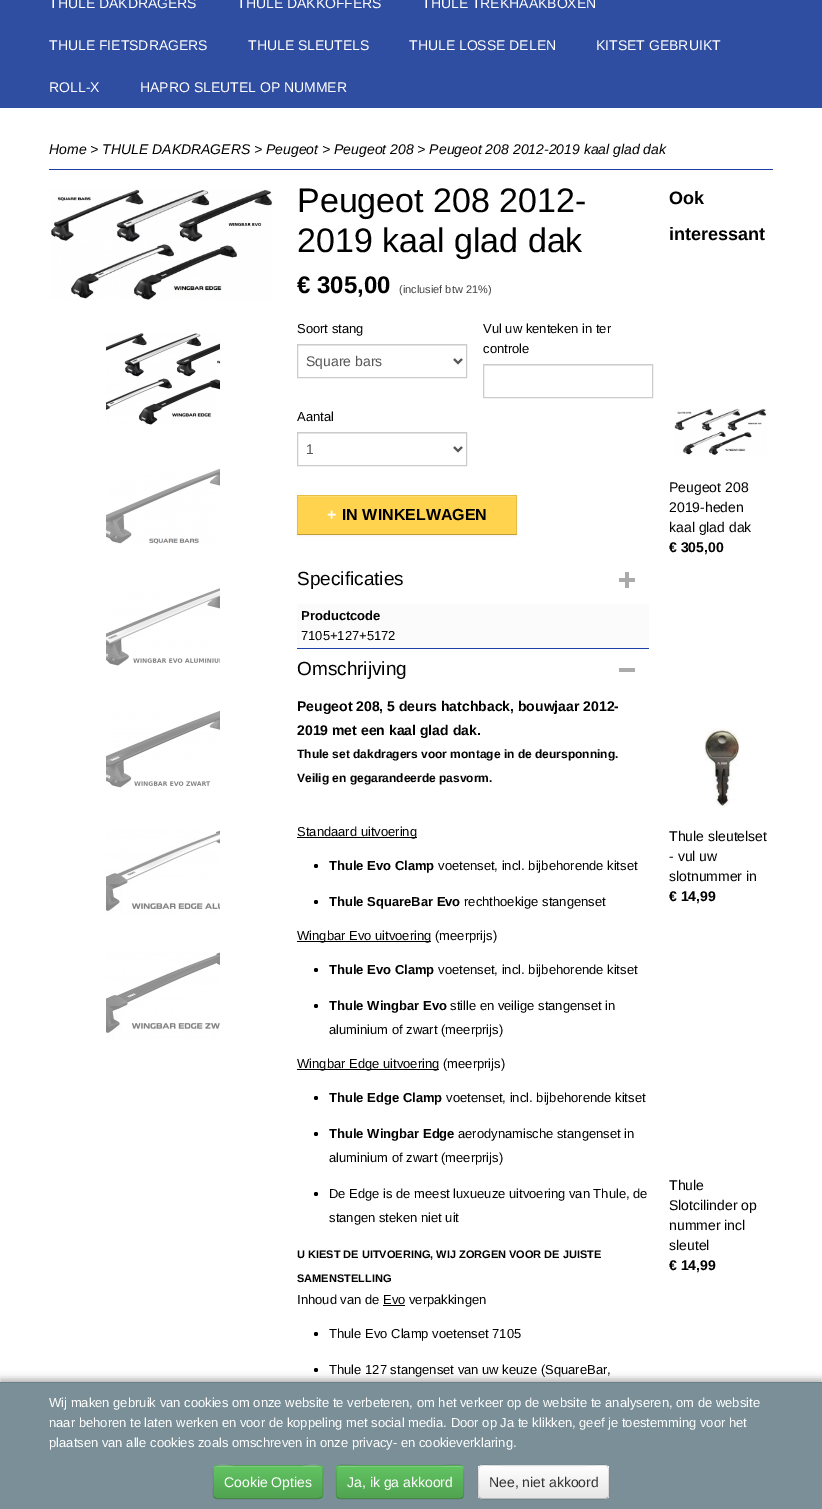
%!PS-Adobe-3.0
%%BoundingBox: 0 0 822 1509
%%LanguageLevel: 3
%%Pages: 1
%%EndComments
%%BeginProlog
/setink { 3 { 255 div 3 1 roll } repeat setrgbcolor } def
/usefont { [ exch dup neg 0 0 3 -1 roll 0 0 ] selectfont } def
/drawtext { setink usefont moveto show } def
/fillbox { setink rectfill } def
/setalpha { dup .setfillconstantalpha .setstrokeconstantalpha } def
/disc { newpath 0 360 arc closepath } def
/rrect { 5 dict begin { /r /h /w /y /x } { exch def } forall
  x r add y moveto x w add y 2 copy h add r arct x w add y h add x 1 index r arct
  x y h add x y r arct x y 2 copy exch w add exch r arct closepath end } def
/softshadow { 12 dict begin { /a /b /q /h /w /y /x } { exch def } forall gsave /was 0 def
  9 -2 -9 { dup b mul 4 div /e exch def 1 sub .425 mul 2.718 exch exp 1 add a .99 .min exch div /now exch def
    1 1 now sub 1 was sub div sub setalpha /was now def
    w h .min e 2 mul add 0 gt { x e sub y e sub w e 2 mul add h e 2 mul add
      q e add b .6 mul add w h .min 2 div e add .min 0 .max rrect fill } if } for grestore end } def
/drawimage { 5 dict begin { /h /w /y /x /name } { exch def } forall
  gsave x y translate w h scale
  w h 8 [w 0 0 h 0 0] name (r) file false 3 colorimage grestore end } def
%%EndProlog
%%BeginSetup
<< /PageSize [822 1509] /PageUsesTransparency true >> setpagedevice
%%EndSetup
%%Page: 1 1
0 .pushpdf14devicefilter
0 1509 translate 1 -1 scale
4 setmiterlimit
0 0 822 1509 255 255 255 fillbox
0 0 822 108 47 77 161 fillbox
(THULE DAKDRAGERS) 49 8 /LiberationSans-Regular 14 255 255 255 drawtext
(THULE DAKKOFFERS) 237 8 /LiberationSans-Regular 14 255 255 255 drawtext
(THULE TREKHAAKBOXEN) 422 8 /LiberationSans-Regular 14 255 255 255 drawtext
(THULE FIETSDRAGERS) 49 50 /LiberationSans-Regular 14 255 255 255 drawtext
(THULE SLEUTELS) 248 50 /LiberationSans-Regular 14 255 255 255 drawtext
(THULE LOSSE DELEN) 409 50 /LiberationSans-Regular 14 255 255 255 drawtext
(KITSET GEBRUIKT) 596 50 /LiberationSans-Regular 14 255 255 255 drawtext
(ROLL-X) 49 92 /LiberationSans-Regular 14 255 255 255 drawtext
(HAPRO SLEUTEL OP NUMMER) 140 92 /LiberationSans-Regular 14 255 255 255 drawtext
49 169 724 1 30 62 168 fillbox
(Home > THULE DAKDRAGERS > Peugeot > Peugeot 208 > Peugeot 208 2012-2019 kaal glad dak) 49 154 /LiberationSans-Italic 14 0 0 0 drawtext
(assets/img1.rgb) 51 189 222 111 drawimage
(assets/img2.rgb) 106 333 114 92 drawimage
(assets/img3.rgb) 106 468 114 76 drawimage
(assets/img4.rgb) 106 588 114 78 drawimage
(assets/img5.rgb) 106 710 114 78 drawimage
(assets/img6.rgb) 106 830 114 85 drawimage
(assets/img7.rgb) 106 951 114 88 drawimage
(Peugeot 208 2012-) 297 212 /LiberationSans-Regular 34 0 0 0 drawtext
(2019 kaal glad dak) 297 252 /LiberationSans-Regular 34 0 0 0 drawtext
(€ 305,00) 297 293 /LiberationSans-Bold 24 0 0 0 drawtext
(\(inclusief btw 21%\)) 399 293 /LiberationSans-Regular 11 64 64 64 drawtext
(Soort stang) 297 333 /LiberationSans-Regular 13 0 0 0 drawtext
298 345 168 1 236 236 236 fillbox
204 204 204 setink
297.5 344.5 169 33 rectstroke
85 85 85 setink
2 setlinewidth
454 359 moveto 458 363 lineto 462 359 lineto stroke
(Square bars) 306 366 /LiberationSans-Regular 14 85 85 85 drawtext
(Vul uw kenteken in ter) 483 333 /LiberationSans-Regular 13 0 0 0 drawtext
(controle) 483 353 /LiberationSans-Regular 13 0 0 0 drawtext
484 365 168 1 236 236 236 fillbox
204 204 204 setink
1 setlinewidth
483.5 364.5 169 33 rectstroke
(Aantal) 297 421 /LiberationSans-Regular 13 0 0 0 drawtext
298 433 168 1 236 236 236 fillbox
204 204 204 setink
297.5 432.5 169 33 rectstroke
85 85 85 setink
2 setlinewidth
454 447 moveto 458 451 lineto 462 447 lineto stroke
(1) 306 454 /LiberationSans-Regular 14 85 85 85 drawtext
0 0 0 setink
297 496 220 40 0 1 0.05 softshadow
297 495 220 40 255 211 78 fillbox
298 496 218 1 255 220 113 fillbox
230 190 70 setink
297 495 moveto 517 495 lineto 516 496 lineto 298 496 lineto closepath fill
0.1 setalpha
0 0 0 setink
517 495 moveto 517 535 lineto 516 534 lineto 516 496 lineto closepath fill
0.25 setalpha
517 535 moveto 297 535 lineto 298 534 lineto 516 534 lineto closepath fill
0.1 setalpha
297 535 moveto 297 495 lineto 298 496 lineto 298 534 lineto closepath fill
1 setalpha
(+) 327 520 /LiberationSans-Bold 16 255 255 255 drawtext
(IN WINKELWAGEN) 342 520 /LiberationSans-Bold 16 0 0 0 drawtext
297 648 352 1 30 62 168 fillbox
(assets/img8.rgb) 619 572 16 16 drawimage
(Specificaties) 297 585 /LiberationSans-Regular 19 0 0 0 drawtext
297 604 352 44 251 251 251 fillbox
(Productcode) 301 620 /LiberationSans-Bold 13 0 0 0 drawtext
(7105+127+5172) 301 640 /LiberationSans-Regular 13 0 0 0 drawtext
619 668 16 4 171 171 171 fillbox
(Omschrijving) 297 675 /LiberationSans-Regular 19 0 0 0 drawtext
(Peugeot 208, 5 deurs hatchback, bouwjaar 2012-) 297 711 /LiberationSans-Bold 14 0 0 0 drawtext
(2019 met een kaal glad dak.) 297 735 /LiberationSans-Bold 14 0 0 0 drawtext
(Thule set dakdragers voor montage in de deursponning.) 297 758 /LiberationSans-Bold 12 0 0 0 drawtext
(Veilig en gegarandeerde pasvorm.) 297 782 /LiberationSans-Bold 12 0 0 0 drawtext
297 837 120 1 0 0 0 fillbox
(Standaard uitvoering) 297 836 /LiberationSans-Regular 13 0 0 0 drawtext
316 866 2 disc fill
(Thule Evo Clamp) 329 870 /LiberationSans-Bold 13 0 0 0 drawtext
(voetenset, incl. bijbehorende kitset) 438 870 /LiberationSans-Regular 13 0 0 0 drawtext
316 902 2 disc fill
(Thule SquareBar Evo) 329 906 /LiberationSans-Bold 13 0 0 0 drawtext
(rechthoekige stangenset) 464 906 /LiberationSans-Regular 13 0 0 0 drawtext
297 941 134 1 0 0 0 fillbox
(Wingbar Evo uitvoering \(meerprijs\)) 297 940 /LiberationSans-Regular 13 0 0 0 drawtext
316 970 2 disc fill
(Thule Evo Clamp) 329 974 /LiberationSans-Bold 13 0 0 0 drawtext
(voetenset, incl. bijbehorende kitset) 438 974 /LiberationSans-Regular 13 0 0 0 drawtext
316 1006 2 disc fill
(Thule Wingbar Evo) 329 1010 /LiberationSans-Bold 13 0 0 0 drawtext
(stille en veilige stangenset in) 450 1010 /LiberationSans-Regular 13 0 0 0 drawtext
(aluminium of zwart \(meerprijs\)) 329 1034 /LiberationSans-Regular 13 0 0 0 drawtext
297 1069 142 1 0 0 0 fillbox
(Wingbar Edge uitvoering \(meerprijs\)) 297 1068 /LiberationSans-Regular 13 0 0 0 drawtext
316 1098 2 disc fill
(Thule Edge Clamp) 329 1102 /LiberationSans-Bold 13 0 0 0 drawtext
(voetenset, incl. bijbehorende kitset) 446 1102 /LiberationSans-Regular 13 0 0 0 drawtext
316 1134 2 disc fill
(Thule Wingbar Edge) 329 1138 /LiberationSans-Bold 13 0 0 0 drawtext
(aerodynamische stangenset in) 458 1138 /LiberationSans-Regular 13 0 0 0 drawtext
(aluminium of zwart \(meerprijs\)) 329 1162 /LiberationSans-Regular 13 0 0 0 drawtext
316 1194 2 disc fill
(De Edge is de meest luxueuze uitvoering van Thule, de) 329 1198 /LiberationSans-Regular 13 0 0 0 drawtext
(stangen steken niet uit) 329 1222 /LiberationSans-Regular 13 0 0 0 drawtext
(U KIEST DE UITVOERING, WIJ ZORGEN VOOR DE JUISTE) 297 1258 /LiberationSans-Bold 11 0 0 0 drawtext
(SAMENSTELLING) 297 1282 /LiberationSans-Bold 11 0 0 0 drawtext
(Inhoud van de Evo verpakkingen) 297 1304 /LiberationSans-Regular 13 0 0 0 drawtext
383 1305 22 1 0 0 0 fillbox
316 1334 2 disc fill
(Thule Evo Clamp voetenset 7105) 329 1338 /LiberationSans-Regular 13 0 0 0 drawtext
316 1370 2 disc fill
(Thule 127 stangenset van uw keuze \(SquareBar,) 329 1374 /LiberationSans-Regular 13 0 0 0 drawtext
(Ook) 669 204 /LiberationSans-Bold 18 0 0 0 drawtext
(interessant) 669 240 /LiberationSans-Bold 18 0 0 0 drawtext
(assets/img9.rgb) 674 408 93 48 drawimage
(Peugeot 208) 669 492 /LiberationSans-Regular 14 0 0 0 drawtext
(2019-heden) 669 512 /LiberationSans-Regular 14 0 0 0 drawtext
(kaal glad dak) 669 532 /LiberationSans-Regular 14 0 0 0 drawtext
(€ 305,00) 669 552 /LiberationSans-Bold 14 0 0 0 drawtext
(assets/img10.rgb) 704 728 37 80 drawimage
(Thule sleutelset) 669 841 /LiberationSans-Regular 14 0 0 0 drawtext
(- vul uw) 669 861 /LiberationSans-Regular 14 0 0 0 drawtext
(slotnummer in) 669 881 /LiberationSans-Regular 14 0 0 0 drawtext
(€ 14,99) 669 901 /LiberationSans-Bold 14 0 0 0 drawtext
(Thule) 669 1190 /LiberationSans-Regular 14 0 0 0 drawtext
(Slotcilinder op) 669 1210 /LiberationSans-Regular 14 0 0 0 drawtext
(nummer incl) 669 1230 /LiberationSans-Regular 14 0 0 0 drawtext
(sleutel) 669 1250 /LiberationSans-Regular 14 0 0 0 drawtext
(€ 14,99) 669 1270 /LiberationSans-Bold 14 0 0 0 drawtext
0 1379 822 127 0 3.5 0.3 softshadow
0 1383 822 126 122 143 152 fillbox
0 1382 822 1 105 126 135 fillbox
(Wij maken gebruik van cookies om onze website te verbeteren, om het verkeer op de website te analyseren, om de website) 49 1407 /LiberationSans-Regular 13 255 255 255 drawtext
(naar behoren te laten werken en voor de koppeling met social media. Door op Ja te klikken, geef je toestemming voor het) 49 1427 /LiberationSans-Regular 13 255 255 255 drawtext
(plaatsen van alle cookies zoals omschreven in onze privacy- en cookieverklaring.) 49 1447 /LiberationSans-Regular 13 255 255 255 drawtext
91 183 91 setink
213 1465 110 34 4 rrect fill
gsave
213 1465 110 34 4 rrect clip newpath
gsave 213 1466 moveto 323 1466 lineto 323 1498 lineto 213 1498 lineto closepath clip newpath
<< /ShadingType 2 /ColorSpace /DeviceRGB /Coords [268 1466 268 1498] /Extend [true true] /Function << /FunctionType 2 /Domain [0 1] /C0 [0.384 0.769 0.384] /C1 [0.318 0.639 0.318] /N 1 >> >> shfill grestore
grestore
0.2 setalpha
255 255 255 setink
217 1467 moveto 319 1467 lineto 321 1467 322 1468 322 1470 curveto 322 1461 304 1466 302 1466 curveto 234 1466 lineto 232 1466 214 1461 214 1470 curveto 214 1468 215 1467 217 1467 curveto closepath fill
0.25 setalpha
0 0 0 setink
1 setlinewidth
321.5 1497.5 moveto 319 1498.5 lineto 216.5 1498.5 lineto 214.5 1497.5 lineto stroke
0.1 setalpha
214.5 1497.5 moveto 212 1495 213.5 1489 213.5 1486.5 curveto 213.5 1462 209 1465.5 234 1465.5 curveto 302 1465.5 lineto 327 1465.5 322.5 1462 322.5 1486.5 curveto 322.5 1489 324 1495 321.5 1497.5 curveto stroke
1 setalpha
(Cookie Opties) 224 1487 /LiberationSans-Regular 14 255 255 255 drawtext
91 183 91 setink
336 1465 128 34 4 rrect fill
gsave
336 1465 128 34 4 rrect clip newpath
gsave 336 1466 moveto 464 1466 lineto 464 1498 lineto 336 1498 lineto closepath clip newpath
<< /ShadingType 2 /ColorSpace /DeviceRGB /Coords [400 1466 400 1498] /Extend [true true] /Function << /FunctionType 2 /Domain [0 1] /C0 [0.384 0.769 0.384] /C1 [0.318 0.639 0.318] /N 1 >> >> shfill grestore
grestore
129 207 129 setink
340 1467 moveto 460 1467 lineto 462 1467 463 1468 463 1470 curveto 463 1468 463 1466 461 1466 curveto 340 1466 lineto 338 1466 337 1468 337 1470 curveto 337 1468 338 1467 340 1467 curveto closepath fill
0.25 setalpha
0 0 0 setink
462.5 1497.5 moveto 462 1498 461 1498.5 460 1498.5 curveto 340 1498.5 lineto 339 1498.5 338 1498 337.5 1497.5 curveto stroke
0.1 setalpha
337.5 1497.5 moveto 335.5 1495 336.5 1485 336.5 1482 curveto 336.5 1460.5 334.5 1465.5 360 1465.5 curveto 440 1465.5 lineto 465.5 1465.5 463.5 1460.5 463.5 1482 curveto 463.5 1485 464.5 1495 462.5 1497.5 curveto stroke
1 setalpha
(Ja, ik ga akkoord) 347 1487 /LiberationSans-Regular 14 255 255 255 drawtext
245 245 245 setink
478 1465 131 34 4 rrect fill
gsave
478 1465 131 34 4 rrect clip newpath
gsave 478 1466 moveto 609 1466 lineto 609 1498 lineto 478 1498 lineto closepath clip newpath
<< /ShadingType 2 /ColorSpace /DeviceRGB /Coords [544 1466 544 1498] /Extend [true true] /Function << /FunctionType 2 /Domain [0 1] /C0 [1 1 1] /C1 [0.902 0.902 0.902] /N 1 >> >> shfill grestore
grestore
0.25 setalpha
0 0 0 setink
607.5 1497.5 moveto 607 1498 606 1498.5 605 1498.5 curveto 482 1498.5 lineto 481 1498.5 480 1498 479.5 1497.5 curveto stroke
0.1 setalpha
479.5 1497.5 moveto 477 1495 478.5 1489 478.5 1486.5 curveto 478.5 1460.5 474 1465.5 502.5 1465.5 curveto 584.5 1465.5 lineto 613 1465.5 608.5 1460.5 608.5 1486.5 curveto 608.5 1489 610 1495 607.5 1497.5 curveto stroke
1 setalpha
(Nee, niet akkoord) 489 1487 /LiberationSans-Regular 14 51 51 51 drawtext
.poppdf14devicefilter showpage
%%EOF
